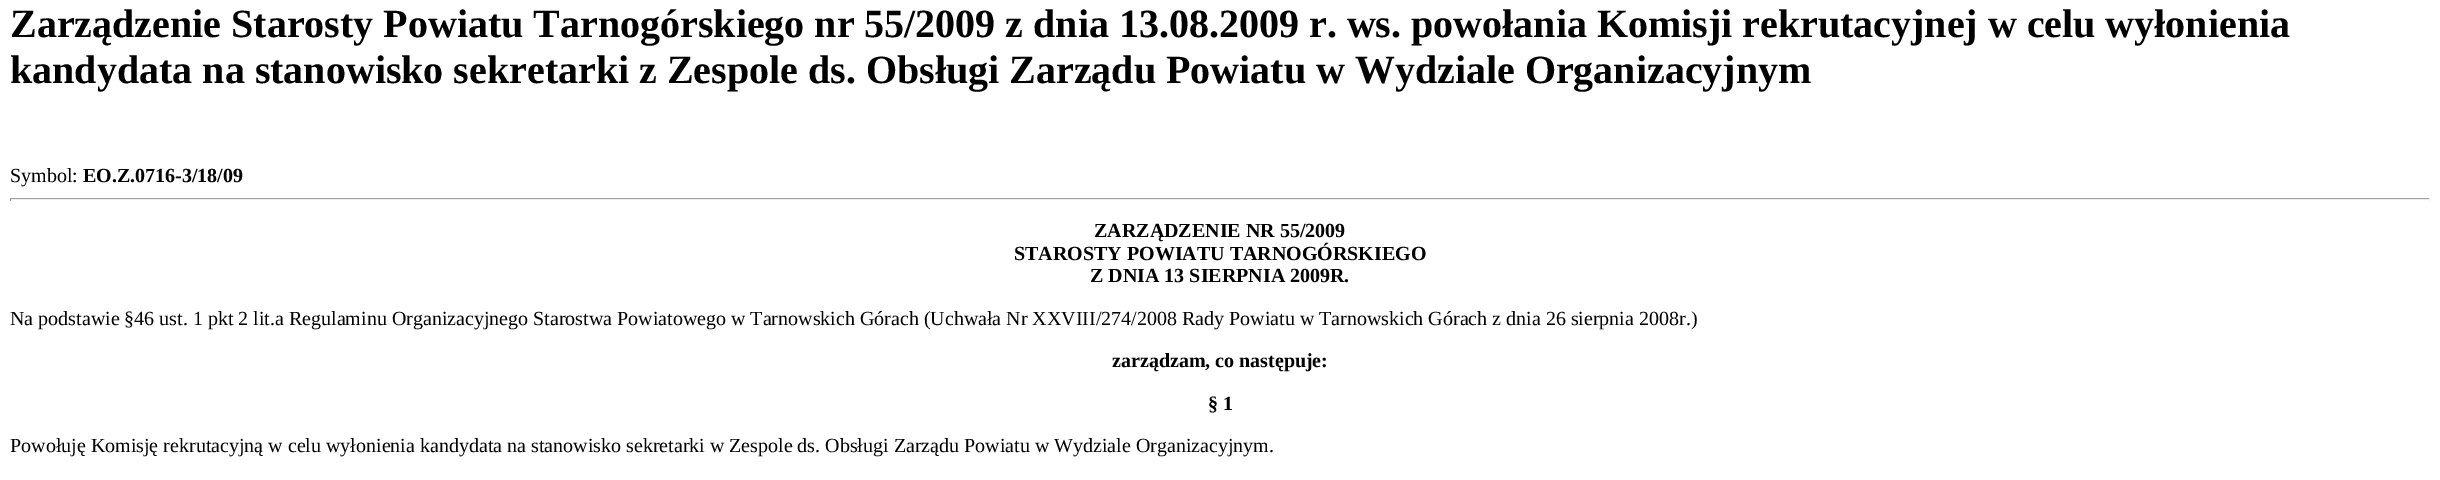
%!PS-Adobe-3.0
%%BoundingBox: 0 0 2440 480
%%LanguageLevel: 3
%%Pages: 1
%%EndComments
%%BeginProlog
/setink { 3 { 255 div 3 1 roll } repeat setrgbcolor } def
/usefont { [ exch dup neg 0 0 3 -1 roll 0 0 ] selectfont } def
/drawtext { setink usefont moveto show } def
/fillbox { setink rectfill } def
%%EndProlog
%%BeginSetup
<< /PageSize [2440 480] >> setpagedevice
%%EndSetup
%%Page: 1 1
0 480 translate 1 -1 scale
4 setmiterlimit
0 0 2440 480 255 255 255 fillbox
(Zarządzenie Starosty Powiatu Tarnogórskiego nr 55/2009 z dnia 13.08.2009 r. ws. powołania Komisji rekrutacyjnej w celu wyłonienia) 10 37 /LiberationSerif-Bold 40 0 0 0 drawtext
(kandydata na stanowisko sekretarki z Zespole ds. Obsługi Zarządu Powiatu w Wydziale Organizacyjnym) 10 83 /LiberationSerif-Bold 40 0 0 0 drawtext
(Symbol:) 10 182 /LiberationSerif-Regular 20 0 0 0 drawtext
(EO.Z.0716-3/18/09) 83 182 /LiberationSerif-Bold 20 0 0 0 drawtext
10 198 2420 1 159 159 159 fillbox
2429 198 1 3 238 238 238 fillbox
10 199 2420 1 238 238 238 fillbox
10 198 1 3 159 159 159 fillbox
(ZARZĄDZENIE NR 55/2009) 1094 237 /LiberationSerif-Bold 20 0 0 0 drawtext
(STAROSTY POWIATU TARNOGÓRSKIEGO) 1014 260 /LiberationSerif-Bold 20 0 0 0 drawtext
(Z DNIA 13 SIERPNIA 2009R.) 1090 282 /LiberationSerif-Bold 20 0 0 0 drawtext
(Na podstawie §46 ust. 1 pkt 2 lit.a Regulaminu Organizacyjnego Starostwa Powiatowego w Tarnowskich Górach \(Uchwała Nr XXVIII/274/2008 Rady Powiatu w Tarnowskich Górach z dnia 26 sierpnia 2008r.\)) 10 325 /LiberationSerif-Regular 20 0 0 0 drawtext
(zarządzam, co następuje:) 1112 367 /LiberationSerif-Bold 20 0 0 0 drawtext
(§ 1) 1208 410 /LiberationSerif-Bold 20 0 0 0 drawtext
(Powołuję Komisję rekrutacyjną w celu wyłonienia kandydata na stanowisko sekretarki w Zespole ds. Obsługi Zarządu Powiatu w Wydziale Organizacyjnym.) 10 452 /LiberationSerif-Regular 20 0 0 0 drawtext
showpage
%%EOF
